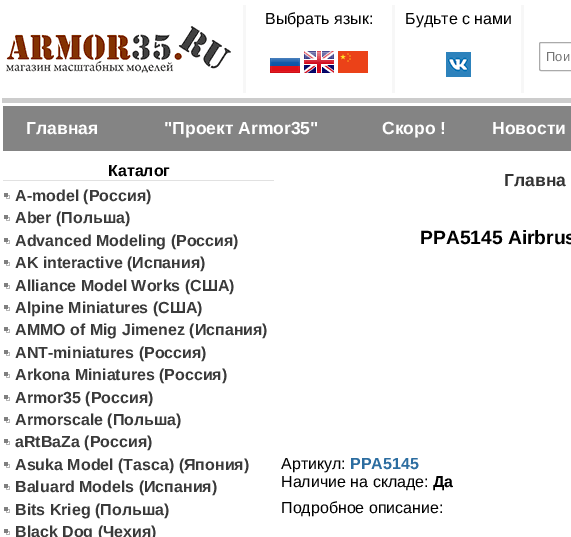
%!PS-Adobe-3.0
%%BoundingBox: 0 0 571 537
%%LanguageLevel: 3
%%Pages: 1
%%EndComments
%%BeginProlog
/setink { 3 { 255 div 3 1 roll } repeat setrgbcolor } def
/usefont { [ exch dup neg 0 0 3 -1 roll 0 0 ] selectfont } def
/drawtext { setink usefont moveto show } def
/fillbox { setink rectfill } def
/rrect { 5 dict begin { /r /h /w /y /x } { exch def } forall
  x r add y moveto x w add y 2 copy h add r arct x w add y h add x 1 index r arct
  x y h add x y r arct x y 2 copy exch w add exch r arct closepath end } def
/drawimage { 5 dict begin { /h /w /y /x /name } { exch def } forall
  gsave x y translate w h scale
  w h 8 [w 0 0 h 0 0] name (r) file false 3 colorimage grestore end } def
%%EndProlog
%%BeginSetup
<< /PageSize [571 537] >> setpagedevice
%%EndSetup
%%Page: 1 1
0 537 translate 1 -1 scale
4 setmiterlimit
0 0 571 537 255 255 255 fillbox
243 5 3 88 247 247 247 fillbox
(Выбрать язык:) 265 24 /LiberationSans-Regular 16 0 0 0 drawtext
392 5 3 88 247 247 247 fillbox
(Будьте с нами) 405 24 /LiberationSans-Regular 16 0 0 0 drawtext
521 5 3 88 247 247 247 fillbox
(assets/img1.rgb) 6 26 225 47 drawimage
(assets/img2.rgb) 270 58 30 15 drawimage
(assets/img3.rgb) 304 51 30 22 drawimage
(assets/img4.rgb) 338 51 30 22 drawimage
(assets/img5.rgb) 446 52 25 25 drawimage
170 170 170 setink
539.5 42.5 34 28 1.5 rrect stroke
(Пои) 546 61 /LiberationSans-Regular 13 117 117 117 drawtext
2 98 569 5 204 204 204 fillbox
3 106 568 45 132 132 132 fillbox
(Главная) 26 134 /LiberationSans-Bold 17.5 255 255 255 drawtext
("Проект Armor35") 164 134 /LiberationSans-Bold 17.5 255 255 255 drawtext
(Скоро !) 382 134 /LiberationSans-Bold 17.5 255 255 255 drawtext
(Новости) 492 134 /LiberationSans-Bold 17.5 255 255 255 drawtext
(Каталог) 108 176 /LiberationSans-Bold 16 0 0 0 drawtext
3 180 271 1 225 225 225 fillbox
(assets/img6.rgb) 4 193 6 6 drawimage
(A-model \(Россия\)) 15 201 /LiberationSans-Bold 16 58 58 58 drawtext
(assets/img6.rgb) 4 215 6 6 drawimage
(Aber \(Польша\)) 15 223 /LiberationSans-Bold 16 58 58 58 drawtext
(assets/img6.rgb) 4 238 6 6 drawimage
(Advanced Modeling \(Россия\)) 15 246 /LiberationSans-Bold 16 58 58 58 drawtext
(assets/img6.rgb) 4 260 6 6 drawimage
(AK interactive \(Испания\)) 15 268 /LiberationSans-Bold 16 58 58 58 drawtext
(assets/img6.rgb) 4 283 6 6 drawimage
(Alliance Model Works \(США\)) 15 291 /LiberationSans-Bold 16 58 58 58 drawtext
(assets/img6.rgb) 4 305 6 6 drawimage
(Alpine Miniatures \(США\)) 15 313 /LiberationSans-Bold 16 58 58 58 drawtext
(assets/img6.rgb) 4 327 6 6 drawimage
(AMMO of Mig Jimenez \(Испания\)) 15 335 /LiberationSans-Bold 16 58 58 58 drawtext
(assets/img6.rgb) 4 350 6 6 drawimage
(ANT-miniatures \(Россия\)) 15 358 /LiberationSans-Bold 16 58 58 58 drawtext
(assets/img6.rgb) 4 372 6 6 drawimage
(Arkona Miniatures \(Россия\)) 15 380 /LiberationSans-Bold 16 58 58 58 drawtext
(assets/img6.rgb) 4 395 6 6 drawimage
(Armor35 \(Россия\)) 15 403 /LiberationSans-Bold 16 58 58 58 drawtext
(assets/img6.rgb) 4 417 6 6 drawimage
(Armorscale \(Польша\)) 15 425 /LiberationSans-Bold 16 58 58 58 drawtext
(assets/img6.rgb) 4 439 6 6 drawimage
(aRtBaZa \(Россия\)) 15 447 /LiberationSans-Bold 16 58 58 58 drawtext
(assets/img6.rgb) 4 462 6 6 drawimage
(Asuka Model \(Tasca\) \(Япония\)) 15 470 /LiberationSans-Bold 16 58 58 58 drawtext
(assets/img6.rgb) 4 484 6 6 drawimage
(Baluard Models \(Испания\)) 15 492 /LiberationSans-Bold 16 58 58 58 drawtext
(assets/img6.rgb) 4 507 6 6 drawimage
(Bits Krieg \(Польша\)) 15 515 /LiberationSans-Bold 16 58 58 58 drawtext
(assets/img6.rgb) 4 529 6 6 drawimage
(Black Dog \(Чехия\)) 15 537 /LiberationSans-Bold 16 58 58 58 drawtext
(Главна) 504 186 /LiberationSans-Bold 17.5 51 51 51 drawtext
(PPA5145 Airbrus) 420 244 /LiberationSans-Bold 19.25 0 0 0 drawtext
(Артикул:) 281 469 /LiberationSans-Regular 16 0 0 0 drawtext
(PPA5145) 350 469 /LiberationSans-Bold 16 44 109 160 drawtext
(Наличие на складе:) 281 487 /LiberationSans-Regular 16 0 0 0 drawtext
(Да) 433 487 /LiberationSans-Bold 16 0 0 0 drawtext
(Подробное описание:) 281 513 /LiberationSans-Regular 16 0 0 0 drawtext
showpage
%%EOF
